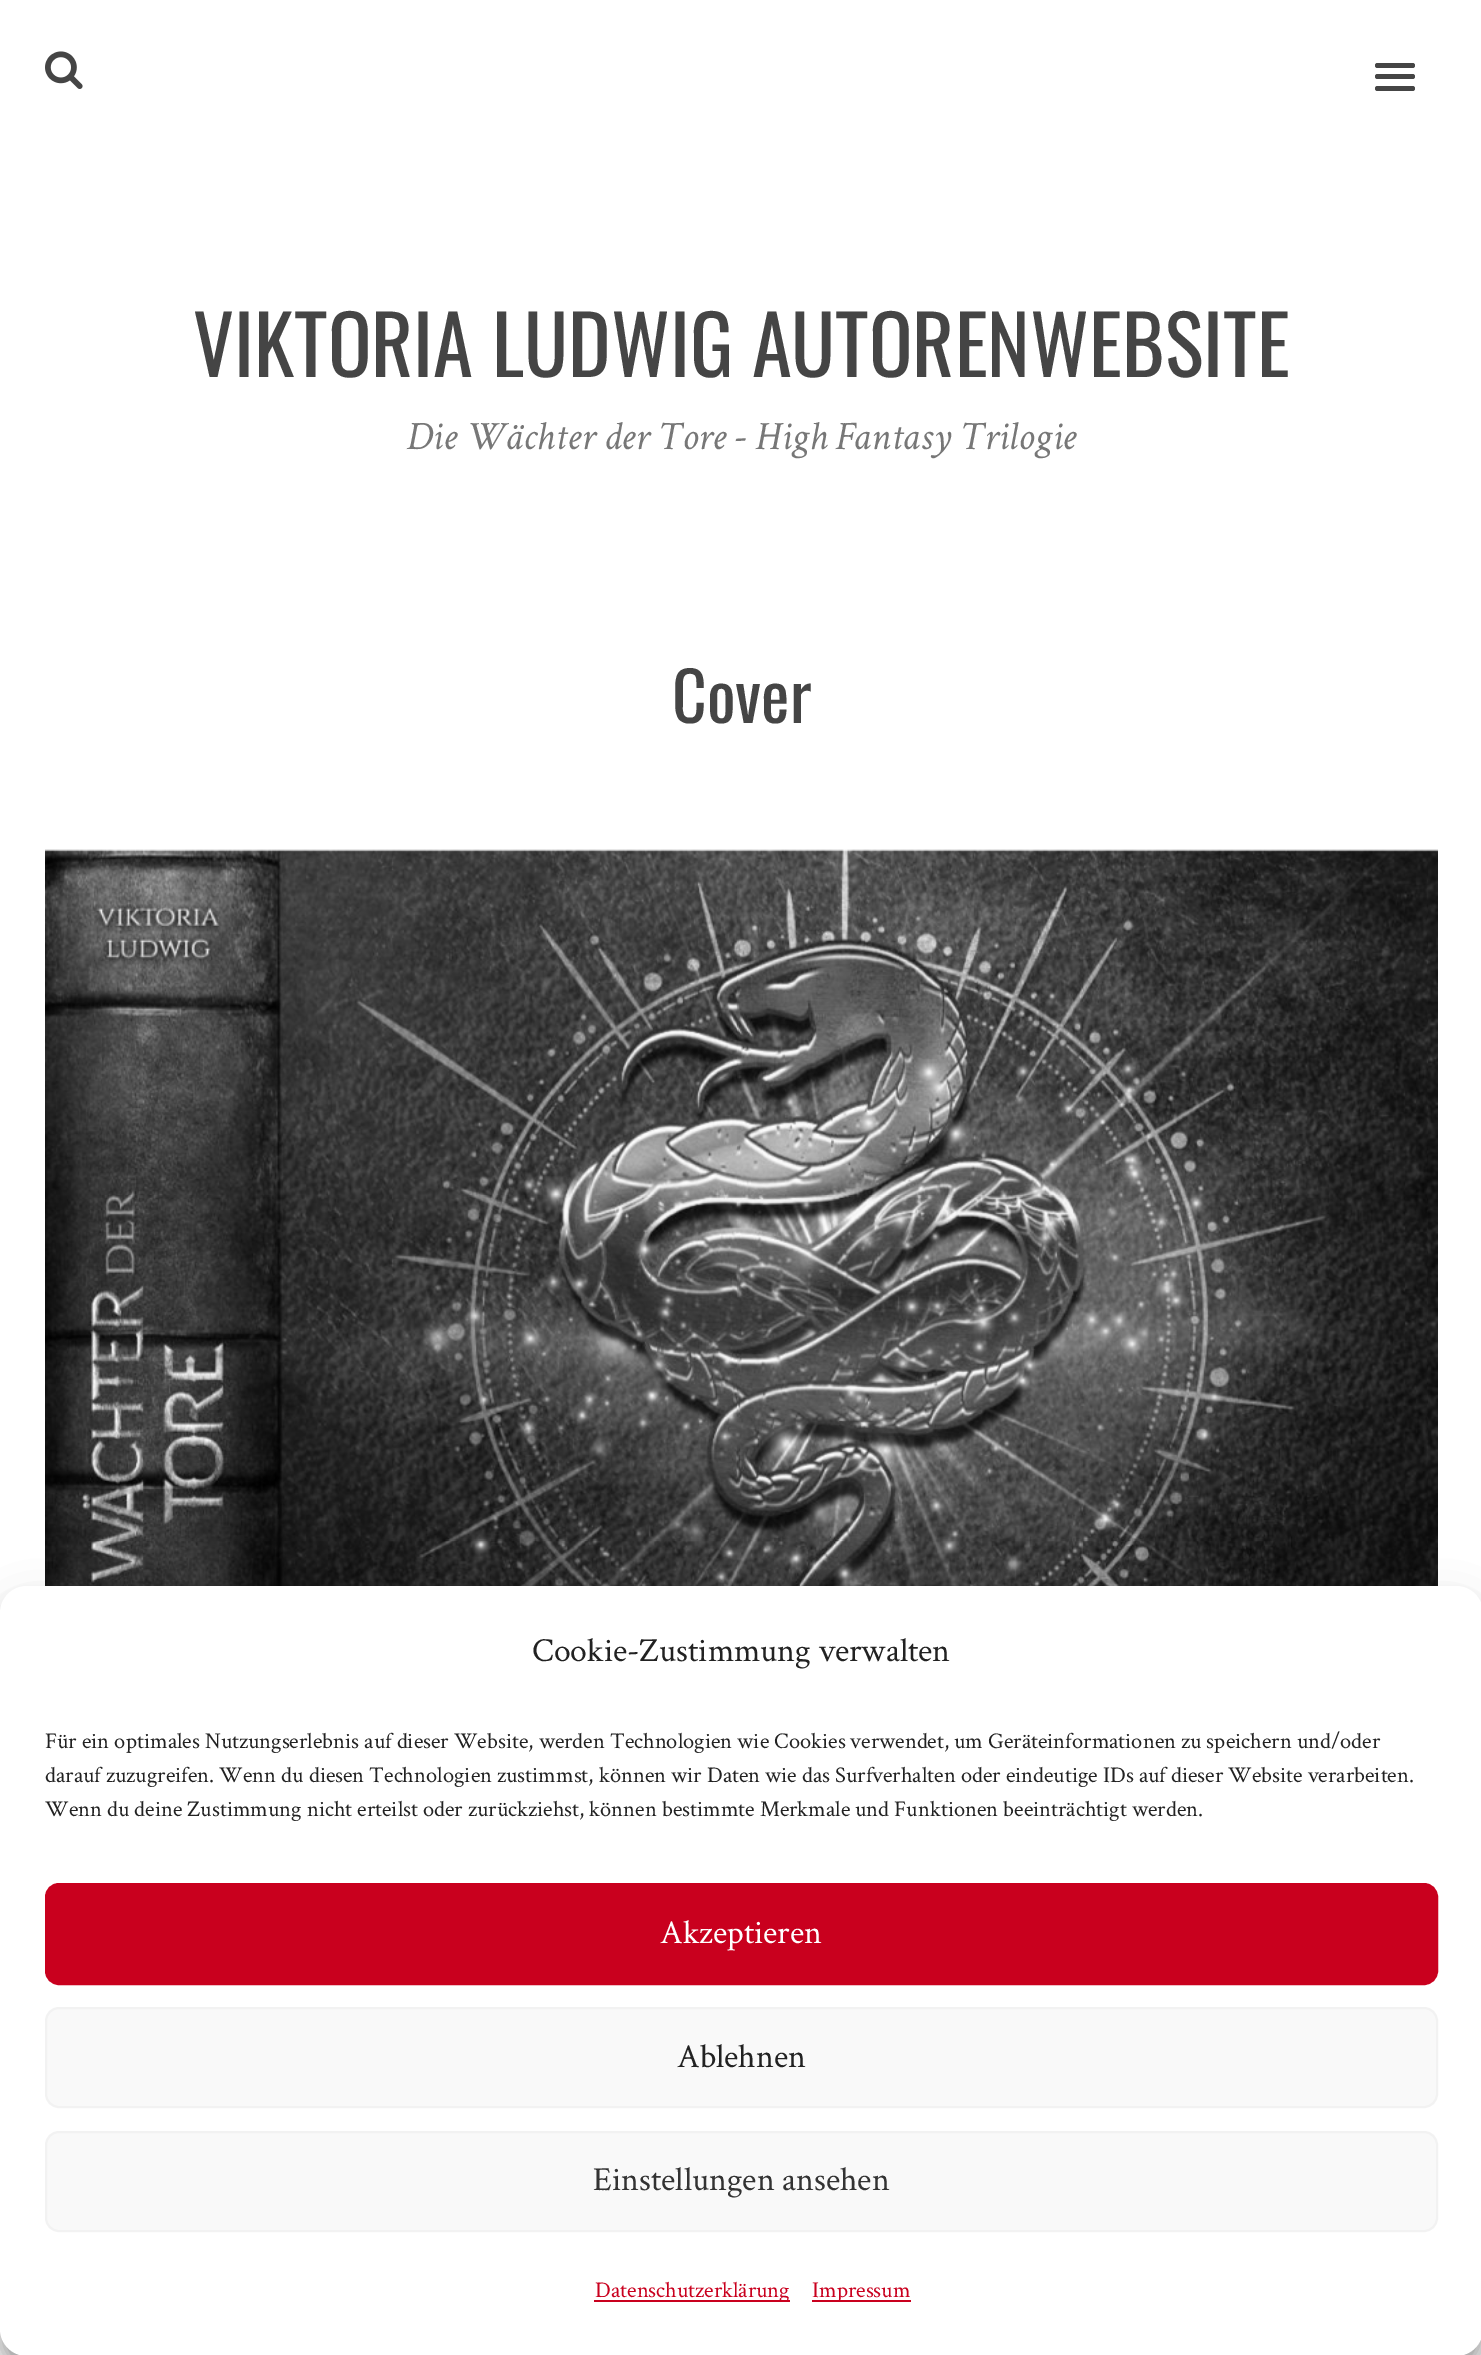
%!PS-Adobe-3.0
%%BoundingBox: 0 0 1481 2355
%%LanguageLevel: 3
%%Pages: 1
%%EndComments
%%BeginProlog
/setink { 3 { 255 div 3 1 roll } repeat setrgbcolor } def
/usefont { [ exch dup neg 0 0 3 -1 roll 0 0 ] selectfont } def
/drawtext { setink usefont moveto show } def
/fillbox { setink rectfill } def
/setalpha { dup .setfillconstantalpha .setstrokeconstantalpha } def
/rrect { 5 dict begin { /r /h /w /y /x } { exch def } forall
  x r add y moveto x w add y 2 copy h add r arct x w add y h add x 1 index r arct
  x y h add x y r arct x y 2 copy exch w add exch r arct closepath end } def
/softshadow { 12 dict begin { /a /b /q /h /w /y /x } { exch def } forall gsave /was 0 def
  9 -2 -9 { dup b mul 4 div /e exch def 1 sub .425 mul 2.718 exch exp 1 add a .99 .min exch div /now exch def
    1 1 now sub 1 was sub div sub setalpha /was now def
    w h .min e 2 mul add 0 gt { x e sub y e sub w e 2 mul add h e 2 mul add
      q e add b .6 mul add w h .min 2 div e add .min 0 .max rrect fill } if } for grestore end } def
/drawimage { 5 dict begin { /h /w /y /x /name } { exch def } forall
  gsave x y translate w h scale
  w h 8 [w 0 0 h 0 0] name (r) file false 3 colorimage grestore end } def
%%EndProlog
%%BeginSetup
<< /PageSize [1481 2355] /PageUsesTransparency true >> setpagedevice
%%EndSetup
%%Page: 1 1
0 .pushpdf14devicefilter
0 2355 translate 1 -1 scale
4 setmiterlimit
0 0 1481 2355 255 255 255 fillbox
(assets/img1.rgb) 45 51 38 38 drawimage
69 69 69 setink
1375 63 40 5 2.5 rrect fill
1375 74 40 5 2.5 rrect fill
1375 86 40 5 2.5 rrect fill
(VIKTORIA LUDWIG AUTORENWEBSITE) 193 377 /Oswald-Regular 81 69 69 69 drawtext
(Die Wächter der Tore - High Fantasy Trilogie) 406 449 /CrimsonText-Italic 40.5 119 119 119 drawtext
(Cover) 672 723 /Oswald-Regular 67.5 69 69 69 drawtext
(assets/img2.rgb) 45 849 1393 737 drawimage
0 0 0 setink
0 1600 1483 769 27 7 0.23 softshadow
0 1609 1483 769 27 22.5 0.19 softshadow
255 255 255 setink
0 1586 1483 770 27 rrect fill
(Cookie-Zustimmung verwalten) 532 1661 /CrimsonText-Regular 33.75 34 34 34 drawtext
(Für ein optimales Nutzungserlebnis auf dieser Website, werden Technologien wie Cookies verwendet, um Geräteinformationen zu speichern und/oder) 45 1748 /CrimsonText-Regular 22.5 34 34 34 drawtext
(darauf zuzugreifen. Wenn du diesen Technologien zustimmst, können wir Daten wie das Surfverhalten oder eindeutige IDs auf dieser Website verarbeiten.) 45 1782 /CrimsonText-Regular 22.5 34 34 34 drawtext
(Wenn du deine Zustimmung nicht erteilst oder zurückziehst, können bestimmte Merkmale und Funktionen beeinträchtigt werden.) 45 1816 /CrimsonText-Regular 22.5 34 34 34 drawtext
201 0 30 setink
46 1884 1391 100 13 rrect gsave fill grestore
2 setlinewidth
stroke
(Akzeptieren) 660 1943 /CrimsonText-Regular 33.75 255 255 255 drawtext
249 249 249 setink
46 2008 1391 99 13 rrect gsave fill grestore
242 242 242 setink
stroke
(Ablehnen) 677 2067 /CrimsonText-Regular 33.75 34 34 34 drawtext
249 249 249 setink
46 2132 1391 99 13 rrect gsave fill grestore
242 242 242 setink
stroke
(Einstellungen ansehen) 593 2190 /CrimsonText-Regular 33.75 51 51 51 drawtext
594 2300 196 2 201 0 30 fillbox
(Datenschutzerklärung) 595 2297 /CrimsonText-Regular 22.5 201 0 30 drawtext
812 2300 99 2 201 0 30 fillbox
(Impressum) 812 2297 /CrimsonText-Regular 22.5 201 0 30 drawtext
.poppdf14devicefilter showpage
%%EOF
